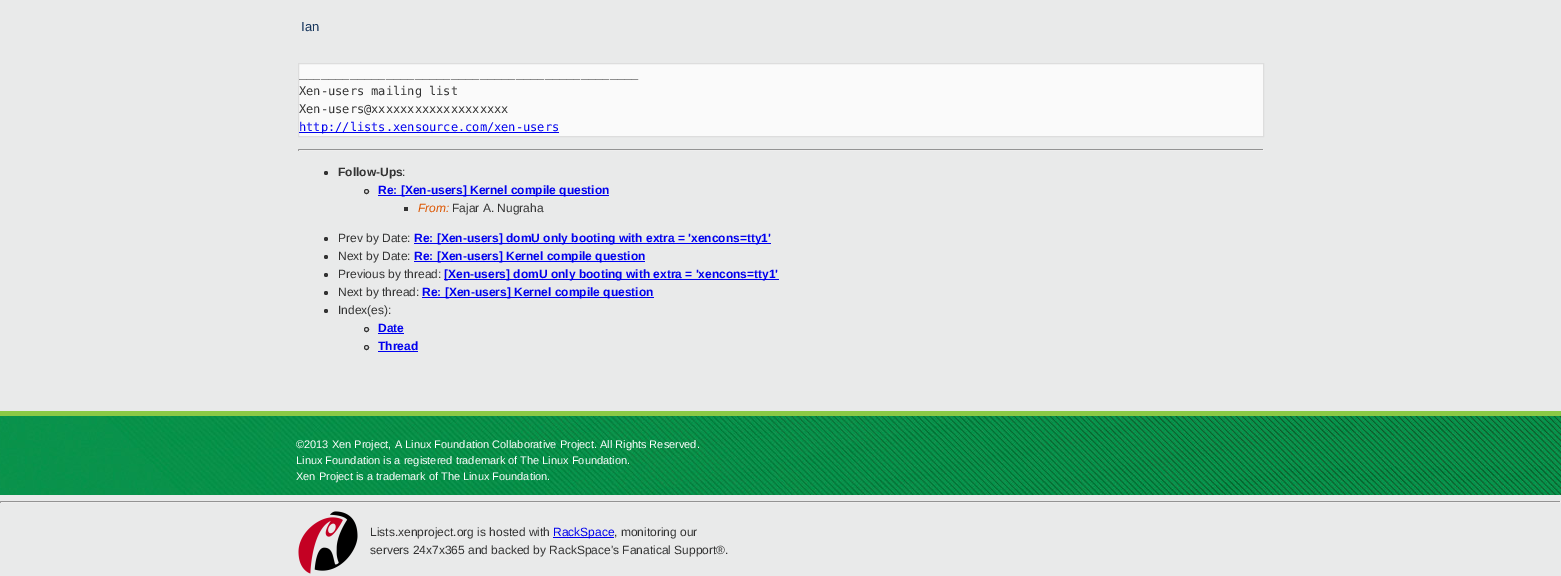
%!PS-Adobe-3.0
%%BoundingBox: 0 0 1561 576
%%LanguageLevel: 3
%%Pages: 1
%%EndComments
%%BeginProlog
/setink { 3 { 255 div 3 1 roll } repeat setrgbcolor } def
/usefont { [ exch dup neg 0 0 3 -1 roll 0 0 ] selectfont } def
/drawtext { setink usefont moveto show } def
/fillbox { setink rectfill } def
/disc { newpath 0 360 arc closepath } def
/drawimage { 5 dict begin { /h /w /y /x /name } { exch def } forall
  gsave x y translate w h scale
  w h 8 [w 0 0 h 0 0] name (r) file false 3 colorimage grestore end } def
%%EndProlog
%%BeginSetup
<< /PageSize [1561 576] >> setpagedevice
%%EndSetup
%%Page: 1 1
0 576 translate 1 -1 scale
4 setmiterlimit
0 0 1561 576 233 234 234 fillbox
(Ian) 301 31 /LiberationSans-Regular 13 23 54 93 drawtext
250 250 250 setink
298.5 63.5 moveto 1263.5 63.5 lineto 1263.5 136.5 lineto 298.5 136.5 lineto closepath gsave fill grestore
221 221 221 setink
stroke
(_______________________________________________) 299 77 /DejaVuSansMono-Regular 12 51 51 51 drawtext
(Xen-users mailing list) 299 95 /DejaVuSansMono-Regular 12 51 51 51 drawtext
(Xen-users@xxxxxxxxxxxxxxxxxxx) 299 113 /DejaVuSansMono-Regular 12 51 51 51 drawtext
299 132 260 1 0 0 238 fillbox
(http://lists.xensource.com/xen-users) 299 131 /DejaVuSansMono-Regular 12 0 0 238 drawtext
298 149 966 1 147 147 147 fillbox
1263 149 1 2 238 238 238 fillbox
298 150 966 1 238 238 238 fillbox
298 149 1 2 159 159 159 fillbox
51 51 51 setink
326 173 2 disc fill
(Follow-Ups) 338 176 /LiberationSans-Bold 12 51 51 51 drawtext
(:) 402 176 /LiberationSans-Regular 12 51 51 51 drawtext
366.5 191.5 2 disc stroke
378 195 231 1 0 0 238 fillbox
(Re: [Xen-users] Kernel compile question) 378 194 /LiberationSans-Bold 12 0 0 238 drawtext
404 207 4 4 51 51 51 fillbox
(From:) 418 212 /LiberationSans-Italic 12 221 85 0 drawtext
(Fajar A. Nugraha) 452 212 /LiberationSans-Regular 12 51 51 51 drawtext
326 239 2 disc fill
(Prev by Date:) 338 242 /LiberationSans-Regular 12 51 51 51 drawtext
414 243 357 1 0 0 238 fillbox
(Re: [Xen-users] domU only booting with extra = 'xencons=tty1') 414 242 /LiberationSans-Bold 12 0 0 238 drawtext
51 51 51 setink
326 257 2 disc fill
(Next by Date:) 338 260 /LiberationSans-Regular 12 51 51 51 drawtext
414 261 231 1 0 0 238 fillbox
(Re: [Xen-users] Kernel compile question) 414 260 /LiberationSans-Bold 12 0 0 238 drawtext
51 51 51 setink
326 275 2 disc fill
(Previous by thread:) 338 278 /LiberationSans-Regular 12 51 51 51 drawtext
444 279 335 1 0 0 238 fillbox
([Xen-users] domU only booting with extra = 'xencons=tty1') 444 278 /LiberationSans-Bold 12 0 0 238 drawtext
51 51 51 setink
326 293 2 disc fill
(Next by thread:) 338 296 /LiberationSans-Regular 12 51 51 51 drawtext
422 297 232 1 0 0 238 fillbox
(Re: [Xen-users] Kernel compile question) 422 296 /LiberationSans-Bold 12 0 0 238 drawtext
51 51 51 setink
326 311 2 disc fill
(Index\(es\):) 338 314 /LiberationSans-Regular 12 51 51 51 drawtext
366.5 329.5 2 disc stroke
(Date) 378 332 /LiberationSans-Bold 12 0 0 238 drawtext
378 333 26 1 0 0 238 fillbox
51 51 51 setink
366.5 347.5 2 disc stroke
(Thread) 378 350 /LiberationSans-Bold 12 0 0 238 drawtext
378 351 40 1 0 0 238 fillbox
(assets/img1.rgb) 0 416 1561 79 drawimage
0 411 1561 5 138 201 69 fillbox
(©2013 Xen Project, A Linux Foundation Collaborative Project. All Rights Reserved.) 296 448 /LiberationSans-Regular 11 255 255 255 drawtext
(Linux Foundation is a registered trademark of The Linux Foundation.) 296 464 /LiberationSans-Regular 11 255 255 255 drawtext
(Xen Project is a trademark of The Linux Foundation.) 296 480 /LiberationSans-Regular 11 255 255 255 drawtext
0 501 1561 1 147 147 147 fillbox
1560 501 1 2 238 238 238 fillbox
0 502 1561 1 238 238 238 fillbox
0 501 1 2 159 159 159 fillbox
(assets/img2.rgb) 298 511 60 63 drawimage
(Lists.xenproject.org is hosted with) 370 536 /LiberationSans-Regular 12 51 51 51 drawtext
553 537 61 1 0 0 238 fillbox
(RackSpace) 553 536 /LiberationSans-Regular 12 0 0 238 drawtext
(, monitoring our) 614 536 /LiberationSans-Regular 12 51 51 51 drawtext
(servers 24x7x365 and backed by RackSpace's Fanatical Support®.) 370 554 /LiberationSans-Regular 12 51 51 51 drawtext
showpage
%%EOF
